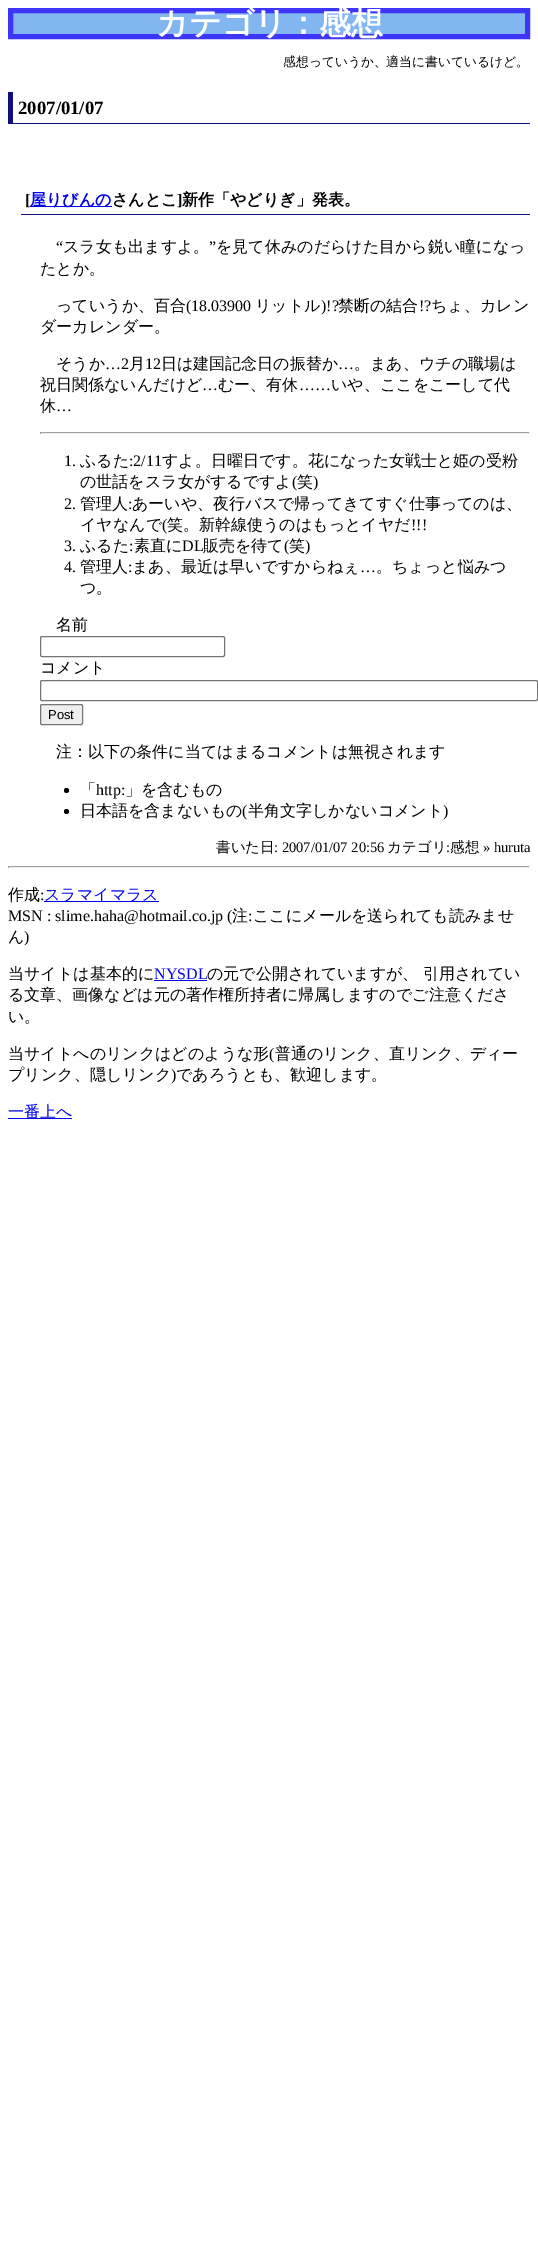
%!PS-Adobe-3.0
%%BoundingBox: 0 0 538 2253
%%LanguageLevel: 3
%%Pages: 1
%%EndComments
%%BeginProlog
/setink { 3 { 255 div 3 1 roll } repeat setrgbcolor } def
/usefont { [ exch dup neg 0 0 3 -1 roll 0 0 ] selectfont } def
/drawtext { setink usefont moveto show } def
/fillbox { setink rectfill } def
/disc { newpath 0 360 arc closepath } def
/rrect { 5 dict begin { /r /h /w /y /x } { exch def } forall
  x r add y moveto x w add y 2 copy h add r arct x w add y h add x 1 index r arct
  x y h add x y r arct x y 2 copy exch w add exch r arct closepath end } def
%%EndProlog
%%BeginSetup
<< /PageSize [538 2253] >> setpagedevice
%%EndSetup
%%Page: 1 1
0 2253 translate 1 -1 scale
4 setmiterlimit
0 0 538 2253 255 255 255 fillbox
129 182 241 setink
10.5 10.5 moveto 527.5 10.5 lineto 527.5 36.5 lineto 10.5 36.5 lineto closepath gsave fill grestore
61 54 249 setink
5 setlinewidth
stroke
(カテゴリ：感想) 156 34 /WenQuanYiZenHei-Bold 32 255 255 255 drawtext
(感想っていうか、適当に書いているけど。) 283 66 /WenQuanYiZenHei-Medium 12.75 0 0 0 drawtext
8 123 522 1 18 14 130 fillbox
8 92 5 32 18 14 130 fillbox
(2007/01/07) 18 114 /LiberationSerif-Bold 18.75 0 0 0 drawtext
21 214 509 1 18 14 130 fillbox
([) 25 205 /LiberationSerif-Bold 16 0 0 0 drawtext
30 206 82 1 0 0 238 fillbox
(屋りびんの) 30 205 /WenQuanYiZenHei-Bold 16 0 0 238 drawtext
(さんとこ) 112 205 /WenQuanYiZenHei-Bold 16 0 0 0 drawtext
(]) 177 205 /LiberationSerif-Bold 16 0 0 0 drawtext
(新作「やどりぎ」発表。) 182 205 /WenQuanYiZenHei-Bold 16 0 0 0 drawtext
(“) 56 252 /LiberationSerif-Regular 16 0 0 0 drawtext
(スラ女も出ますよ。) 63 252 /WenQuanYiZenHei-Medium 16 0 0 0 drawtext
(”) 209 252 /LiberationSerif-Regular 16 0 0 0 drawtext
(を見て休みのだらけた目から鋭い瞳になっ) 216 252 /WenQuanYiZenHei-Medium 16 0 0 0 drawtext
(たとか。) 40 274 /WenQuanYiZenHei-Medium 16 0 0 0 drawtext
(っていうか、百合) 56 311 /WenQuanYiZenHei-Medium 16 0 0 0 drawtext
(\(18.03900) 186 311 /LiberationSerif-Regular 16 0 0 0 drawtext
(リットル) 255 311 /WenQuanYiZenHei-Medium 16 0 0 0 drawtext
(\)!?) 321 311 /LiberationSerif-Regular 16 0 0 0 drawtext
(禁断の結合) 338 311 /WenQuanYiZenHei-Medium 16 0 0 0 drawtext
(!?) 419 311 /LiberationSerif-Regular 16 0 0 0 drawtext
(ちょ、カレン) 431 311 /WenQuanYiZenHei-Medium 16 0 0 0 drawtext
(ダーカレンダー。) 40 332 /WenQuanYiZenHei-Medium 16 0 0 0 drawtext
(そうか) 56 369 /WenQuanYiZenHei-Medium 16 0 0 0 drawtext
(…2) 105 369 /LiberationSerif-Regular 16 0 0 0 drawtext
(月) 129 369 /WenQuanYiZenHei-Medium 16 0 0 0 drawtext
(12) 145 369 /LiberationSerif-Regular 16 0 0 0 drawtext
(日は建国記念日の振替か) 161 369 /WenQuanYiZenHei-Medium 16 0 0 0 drawtext
(…) 338 369 /LiberationSerif-Regular 16 0 0 0 drawtext
(。まあ、ウチの職場は) 354 369 /WenQuanYiZenHei-Medium 16 0 0 0 drawtext
(祝日関係ないんだけど) 40 390 /WenQuanYiZenHei-Medium 16 0 0 0 drawtext
(…) 202 390 /LiberationSerif-Regular 16 0 0 0 drawtext
(むー、有休) 218 390 /WenQuanYiZenHei-Medium 16 0 0 0 drawtext
(……) 299 390 /LiberationSerif-Regular 16 0 0 0 drawtext
(いや、ここをこーして代) 331 390 /WenQuanYiZenHei-Medium 16 0 0 0 drawtext
(休) 40 411 /WenQuanYiZenHei-Medium 16 0 0 0 drawtext
(…) 56 411 /LiberationSerif-Regular 16 0 0 0 drawtext
40 432 490 1 159 159 159 fillbox
529 432 1 2 238 238 238 fillbox
40 433 490 1 238 238 238 fillbox
40 432 1 2 159 159 159 fillbox
(1.) 64 466 /LiberationSerif-Regular 16 0 0 0 drawtext
(ふるた) 80 466 /WenQuanYiZenHei-Medium 16 0 0 0 drawtext
(:2/11) 129 466 /LiberationSerif-Regular 16 0 0 0 drawtext
(すよ。日曜日です。花になった女戦士と姫の受粉) 162 466 /WenQuanYiZenHei-Medium 16 0 0 0 drawtext
(の世話をスラ女がするですよ) 80 487 /WenQuanYiZenHei-Medium 16 0 0 0 drawtext
(\() 292 487 /LiberationSerif-Regular 16 0 0 0 drawtext
(笑) 297 487 /WenQuanYiZenHei-Medium 16 0 0 0 drawtext
(\)) 313 487 /LiberationSerif-Regular 16 0 0 0 drawtext
(2.) 64 509 /LiberationSerif-Regular 16 0 0 0 drawtext
(管理人) 80 509 /WenQuanYiZenHei-Medium 16 0 0 0 drawtext
(:) 128 509 /LiberationSerif-Regular 16 0 0 0 drawtext
(あーいや、夜行バスで帰ってきてすぐ仕事ってのは、) 132 509 /WenQuanYiZenHei-Medium 16 0 0 0 drawtext
(イヤなんで) 80 530 /WenQuanYiZenHei-Medium 16 0 0 0 drawtext
(\() 162 530 /LiberationSerif-Regular 16 0 0 0 drawtext
(笑。新幹線使うのはもっとイヤだ) 167 530 /WenQuanYiZenHei-Medium 16 0 0 0 drawtext
(!!!) 411 530 /LiberationSerif-Regular 16 0 0 0 drawtext
(3.) 64 551 /LiberationSerif-Regular 16 0 0 0 drawtext
(ふるた) 80 551 /WenQuanYiZenHei-Medium 16 0 0 0 drawtext
(:) 129 551 /LiberationSerif-Regular 16 0 0 0 drawtext
(素直に) 134 551 /WenQuanYiZenHei-Medium 16 0 0 0 drawtext
(DL) 182 551 /LiberationSerif-Regular 16 0 0 0 drawtext
(販売を待て) 203 551 /WenQuanYiZenHei-Medium 16 0 0 0 drawtext
(\() 284 551 /LiberationSerif-Regular 16 0 0 0 drawtext
(笑) 289 551 /WenQuanYiZenHei-Medium 16 0 0 0 drawtext
(\)) 305 551 /LiberationSerif-Regular 16 0 0 0 drawtext
(4.) 64 572 /LiberationSerif-Regular 16 0 0 0 drawtext
(管理人) 80 572 /WenQuanYiZenHei-Medium 16 0 0 0 drawtext
(:) 128 572 /LiberationSerif-Regular 16 0 0 0 drawtext
(まあ、最近は早いですからねぇ) 132 572 /WenQuanYiZenHei-Medium 16 0 0 0 drawtext
(…) 360 572 /LiberationSerif-Regular 16 0 0 0 drawtext
(。ちょっと悩みつ) 376 572 /WenQuanYiZenHei-Medium 16 0 0 0 drawtext
(つ。) 80 593 /WenQuanYiZenHei-Medium 16 0 0 0 drawtext
(名前) 56 630 /WenQuanYiZenHei-Medium 16 0 0 0 drawtext
118 118 118 setink
1 setlinewidth
40.5 636.5 184 20 1.5 rrect stroke
(コメント) 40 673 /WenQuanYiZenHei-Medium 16 0 0 0 drawtext
118 118 118 setink
40.5 680.5 497 20 1.5 rrect stroke
239 239 239 setink
40.5 704.5 42 20 1.5 rrect gsave fill grestore
118 118 118 setink
stroke
(Post) 48 719 /LiberationSans-Regular 13 0 0 0 drawtext
(注：以下の条件に当てはまるコメントは無視されます) 56 757 /WenQuanYiZenHei-Medium 16 0 0 0 drawtext
66.5 790.5 2.5 disc fill
(「) 80 795 /WenQuanYiZenHei-Medium 16 0 0 0 drawtext
(http:) 96 795 /LiberationSerif-Regular 16 0 0 0 drawtext
(」を含むもの) 125 795 /WenQuanYiZenHei-Medium 16 0 0 0 drawtext
66.5 811.5 2.5 disc fill
(日本語を含まないもの) 80 816 /WenQuanYiZenHei-Medium 16 0 0 0 drawtext
(\() 242 816 /LiberationSerif-Regular 16 0 0 0 drawtext
(半角文字しかないコメント) 248 816 /WenQuanYiZenHei-Medium 16 0 0 0 drawtext
(\)) 443 816 /LiberationSerif-Regular 16 0 0 0 drawtext
(書いた日) 216 852 /WenQuanYiZenHei-Medium 14.5 0 0 0 drawtext
(: 2007/01/07 20:56) 274 852 /LiberationSerif-Regular 14.5 0 0 0 drawtext
(カテゴリ) 387 852 /WenQuanYiZenHei-Medium 14.5 0 0 0 drawtext
(:) 446 852 /LiberationSerif-Regular 14.5 0 0 0 drawtext
(感想) 450 852 /WenQuanYiZenHei-Medium 14.5 0 0 0 drawtext
(» huruta) 483 852 /LiberationSerif-Regular 14.5 0 0 0 drawtext
8 866 522 1 159 159 159 fillbox
529 866 1 2 238 238 238 fillbox
8 867 522 1 238 238 238 fillbox
8 866 1 2 159 159 159 fillbox
(作成) 8 900 /WenQuanYiZenHei-Medium 16 0 0 0 drawtext
(:) 40 900 /LiberationSerif-Regular 16 0 0 0 drawtext
44 901 115 1 0 0 238 fillbox
(スラマイマラス) 44 900 /WenQuanYiZenHei-Medium 16 0 0 238 drawtext
(MSN : slime.haha@hotmail.co.jp \() 8 921 /LiberationSerif-Regular 16 0 0 0 drawtext
(注) 232 921 /WenQuanYiZenHei-Medium 16 0 0 0 drawtext
(:) 248 921 /LiberationSerif-Regular 16 0 0 0 drawtext
(ここにメールを送られても読みませ) 253 921 /WenQuanYiZenHei-Medium 16 0 0 0 drawtext
(ん) 8 942 /WenQuanYiZenHei-Medium 16 0 0 0 drawtext
(\)) 24 942 /LiberationSerif-Regular 16 0 0 0 drawtext
(当サイトは基本的に) 8 979 /WenQuanYiZenHei-Medium 16 0 0 0 drawtext
(NYSDL) 154 979 /LiberationSerif-Regular 16 0 0 238 drawtext
154 980 53 1 0 0 238 fillbox
(の元で公開されていますが、) 207 979 /WenQuanYiZenHei-Medium 16 0 0 0 drawtext
(引用されてい) 423 979 /WenQuanYiZenHei-Medium 16 0 0 0 drawtext
(る文章、画像などは元の著作権所持者に帰属しますのでご注意くださ) 8 1000 /WenQuanYiZenHei-Medium 16 0 0 0 drawtext
(い。) 8 1022 /WenQuanYiZenHei-Medium 16 0 0 0 drawtext
(当サイトへのリンクはどのような形) 8 1059 /WenQuanYiZenHei-Medium 16 0 0 0 drawtext
(\() 269 1059 /LiberationSerif-Regular 16 0 0 0 drawtext
(普通のリンク、直リンク、ディー) 275 1059 /WenQuanYiZenHei-Medium 16 0 0 0 drawtext
(プリンク、隠しリンク) 8 1080 /WenQuanYiZenHei-Medium 16 0 0 0 drawtext
(\)) 171 1080 /LiberationSerif-Regular 16 0 0 0 drawtext
(であろうとも、歓迎します。) 176 1080 /WenQuanYiZenHei-Medium 16 0 0 0 drawtext
8 1118 64 1 0 0 238 fillbox
(一番上へ) 8 1117 /WenQuanYiZenHei-Medium 16 0 0 238 drawtext
showpage
%%EOF
